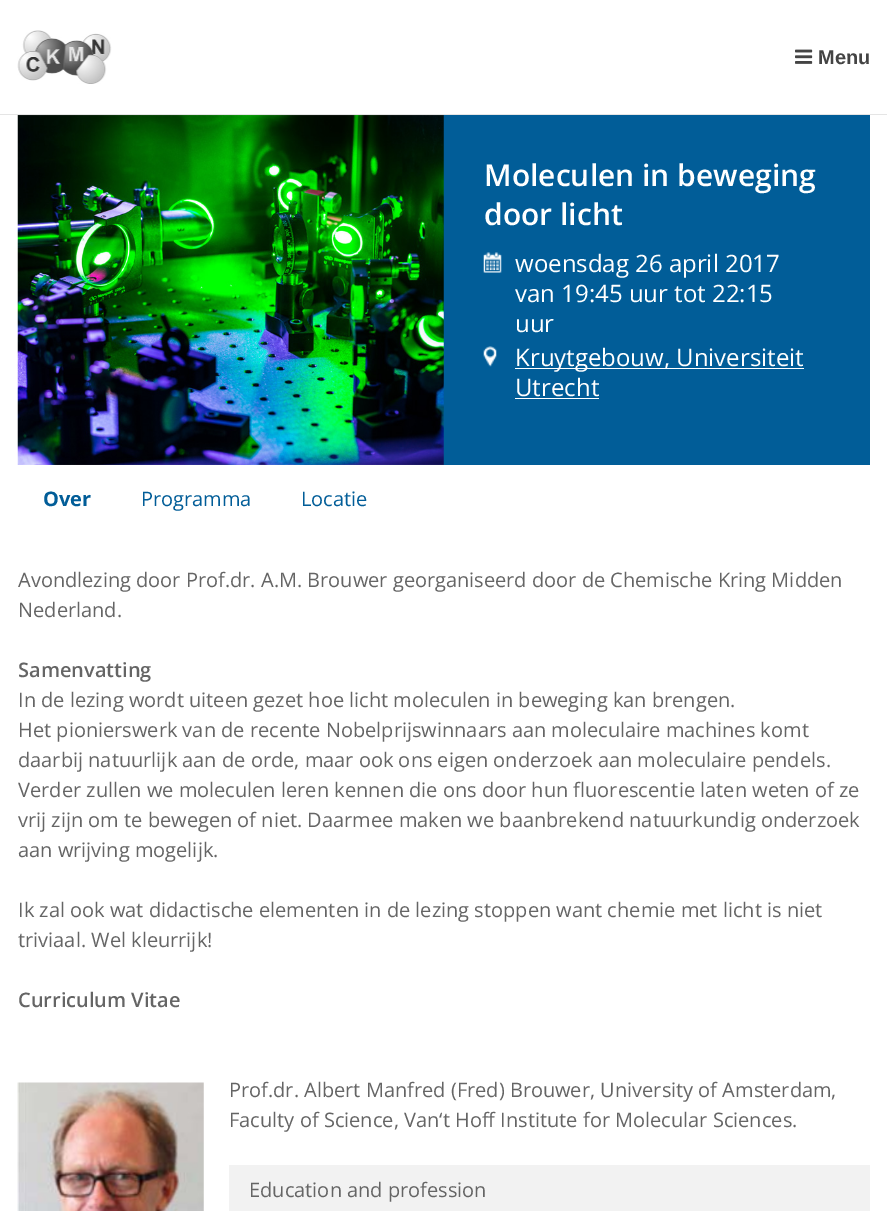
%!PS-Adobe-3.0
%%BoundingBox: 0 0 887 1211
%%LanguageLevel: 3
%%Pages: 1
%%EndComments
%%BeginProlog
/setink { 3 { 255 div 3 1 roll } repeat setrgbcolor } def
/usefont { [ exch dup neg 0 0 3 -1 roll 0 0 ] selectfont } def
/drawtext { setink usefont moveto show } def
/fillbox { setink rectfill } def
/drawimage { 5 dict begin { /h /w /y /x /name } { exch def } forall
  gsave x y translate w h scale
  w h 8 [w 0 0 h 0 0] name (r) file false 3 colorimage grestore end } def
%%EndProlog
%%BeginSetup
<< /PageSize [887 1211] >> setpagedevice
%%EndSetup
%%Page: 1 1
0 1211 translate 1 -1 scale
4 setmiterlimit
0 0 887 1211 255 255 255 fillbox
0 114 887 1 229 229 229 fillbox
(assets/img1.rgb) 17 30 95 54 drawimage
(assets/img2.rgb) 795 49 18 15 drawimage
(Menu) 818 64 /LiberationSans-Bold 20 68 68 68 drawtext
443 115 427 350 1 93 152 fillbox
(assets/img3.rgb) 17 115 427 350 drawimage
(Moleculen in beweging) 484 186 /OpenSans-SemiBold 30 255 255 255 drawtext
(door licht) 484 225 /OpenSans-SemiBold 30 255 255 255 drawtext
(assets/img4.rgb) 483 252 19 21 drawimage
(woensdag 26 april 2017) 515 272 /OpenSans-Regular 24 255 255 255 drawtext
(van 19:45 uur tot 22:15) 515 302 /OpenSans-Regular 24 255 255 255 drawtext
(uur) 515 332 /OpenSans-Regular 24 255 255 255 drawtext
(assets/img5.rgb) 483 346 14 21 drawimage
515 368 289 1 255 255 255 fillbox
(Kruytgebouw, Universiteit) 515 366 /OpenSans-Regular 24 255 255 255 drawtext
(Utrecht) 515 396 /OpenSans-Regular 24 255 255 255 drawtext
515 398 84 1 255 255 255 fillbox
(Over) 43 506 /OpenSans-Bold 20 1 93 152 drawtext
(Programma) 141 506 /OpenSans-Regular 20 1 93 152 drawtext
(Locatie) 301 506 /OpenSans-Regular 20 1 93 152 drawtext
(Avondlezing door Prof.dr. A.M. Brouwer georganiseerd door de Chemische Kring Midden) 18 587 /OpenSans-Regular 20 101 101 101 drawtext
(Nederland.) 18 617 /OpenSans-Regular 20 101 101 101 drawtext
(Samenvatting) 18 677 /OpenSans-SemiBold 20 101 101 101 drawtext
(In de lezing wordt uiteen gezet hoe licht moleculen in beweging kan brengen.) 18 707 /OpenSans-Regular 20 101 101 101 drawtext
(Het pionierswerk van de recente Nobelprijswinnaars aan moleculaire machines komt) 18 737 /OpenSans-Regular 20 101 101 101 drawtext
(daarbij natuurlijk aan de orde, maar ook ons eigen onderzoek aan moleculaire pendels.) 18 767 /OpenSans-Regular 20 101 101 101 drawtext
(Verder zullen we moleculen leren kennen die ons door hun fluorescentie laten weten of ze) 18 797 /OpenSans-Regular 20 101 101 101 drawtext
(vrij zijn om te bewegen of niet. Daarmee maken we baanbrekend natuurkundig onderzoek) 18 827 /OpenSans-Regular 20 101 101 101 drawtext
(aan wrijving mogelijk.) 18 857 /OpenSans-Regular 20 101 101 101 drawtext
(Ik zal ook wat didactische elementen in de lezing stoppen want chemie met licht is niet) 18 917 /OpenSans-Regular 20 101 101 101 drawtext
(triviaal. Wel kleurrijk!) 18 947 /OpenSans-Regular 20 101 101 101 drawtext
(Curriculum Vitae) 18 1007 /OpenSans-SemiBold 20 101 101 101 drawtext
(assets/img6.rgb) 17 1082 187 129 drawimage
(Prof.dr. Albert Manfred \(Fred\) Brouwer, University of Amsterdam,) 229 1097 /OpenSans-Regular 20 101 101 101 drawtext
(Faculty of Science, Van‘t Hoff Institute for Molecular Sciences.) 229 1127 /OpenSans-Regular 20 101 101 101 drawtext
229 1165 641 46 242 242 242 fillbox
(Education and profession) 249 1197 /OpenSans-Regular 20 101 101 101 drawtext
showpage
%%EOF
